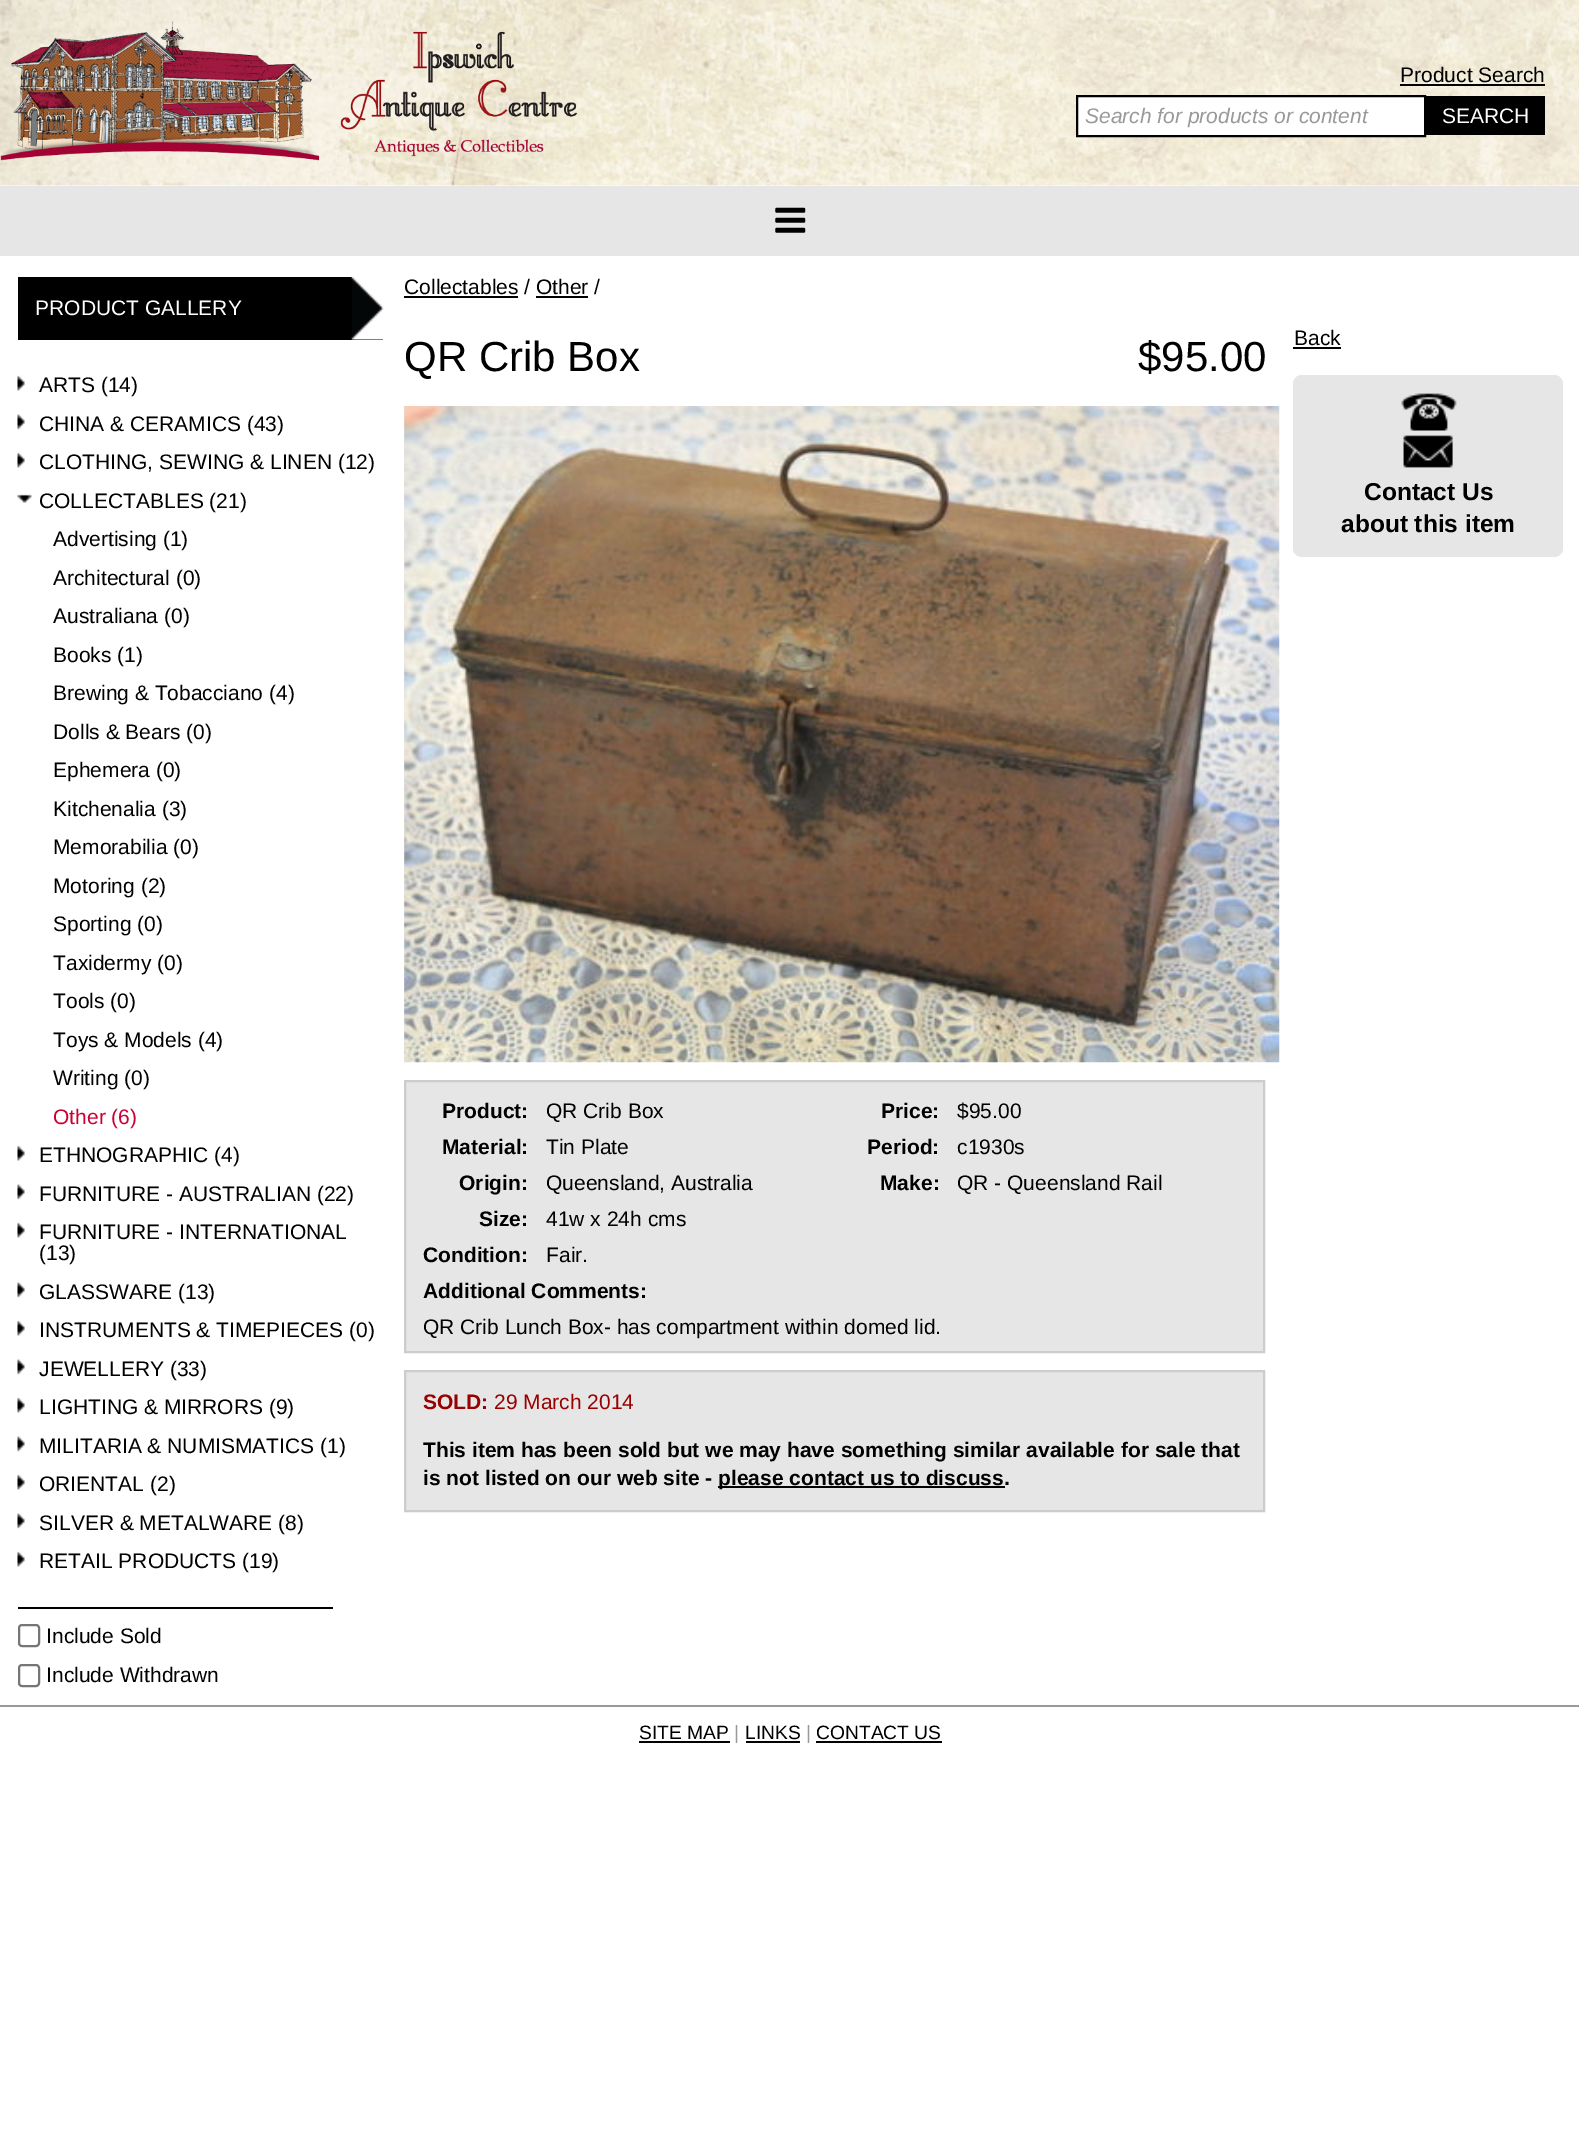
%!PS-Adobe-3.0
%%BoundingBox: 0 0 1579 2129
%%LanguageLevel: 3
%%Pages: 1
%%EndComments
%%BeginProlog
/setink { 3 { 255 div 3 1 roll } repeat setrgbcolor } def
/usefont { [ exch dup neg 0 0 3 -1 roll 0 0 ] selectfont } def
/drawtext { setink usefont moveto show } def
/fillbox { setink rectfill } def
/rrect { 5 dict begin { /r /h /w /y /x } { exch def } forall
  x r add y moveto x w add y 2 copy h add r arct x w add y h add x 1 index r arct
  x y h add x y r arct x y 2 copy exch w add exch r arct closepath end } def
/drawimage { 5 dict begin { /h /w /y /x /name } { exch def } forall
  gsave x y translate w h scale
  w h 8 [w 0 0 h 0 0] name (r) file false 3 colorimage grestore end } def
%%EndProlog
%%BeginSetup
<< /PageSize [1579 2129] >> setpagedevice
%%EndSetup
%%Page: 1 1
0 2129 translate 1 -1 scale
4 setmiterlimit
0 0 1579 2129 255 255 255 fillbox
(assets/img1.rgb) 0 0 1579 186 drawimage
(assets/img2.rgb) 0 21 578 140 drawimage
(Product Search) 1400 82 /LiberationSans-Regular 21 0 0 0 drawtext
1400 84 145 2 0 0 0 fillbox
255 255 255 setink
1077 96 moveto 1425 96 lineto 1425 136 lineto 1077 136 lineto closepath gsave fill grestore
0 0 0 setink
2 setlinewidth
stroke
(Search for products or content) 1085 123 /LiberationSans-Italic 21 153 153 153 drawtext
1426 96 119 39 0 0 0 fillbox
(SEARCH) 1442 123 /LiberationSans-Regular 21 255 255 255 drawtext
0 186 1579 70 230 230 230 fillbox
(assets/img3.rgb) 775 207 31 26 drawimage
18 277 365 63 0 0 0 fillbox
(assets/img4.rgb) 351 276 33 64 drawimage
(PRODUCT GALLERY) 35 315 /LiberationSans-Regular 21 255 255 255 drawtext
(ARTS \(14\)) 39 392 /LiberationSans-Regular 21 0 0 0 drawtext
(assets/img5.rgb) 17 375 22 17 drawimage
(assets/img6.rgb) 17 414 8 16 drawimage
(CHINA & CERAMICS \(43\)) 39 431 /LiberationSans-Regular 21 0 0 0 drawtext
(assets/img7.rgb) 17 452 8 16 drawimage
(CLOTHING, SEWING & LINEN \(12\)) 39 469 /LiberationSans-Regular 21 0 0 0 drawtext
(assets/img8.rgb) 17 494 15 9 drawimage
(COLLECTABLES \(21\)) 39 508 /LiberationSans-Regular 21 0 0 0 drawtext
(Advertising \(1\)) 53 546 /LiberationSans-Regular 21 0 0 0 drawtext
(Architectural \(0\)) 53 585 /LiberationSans-Regular 21 0 0 0 drawtext
(Australiana \(0\)) 53 623 /LiberationSans-Regular 21 0 0 0 drawtext
(Books \(1\)) 53 662 /LiberationSans-Regular 21 0 0 0 drawtext
(Brewing & Tobacciano \(4\)) 53 700 /LiberationSans-Regular 21 0 0 0 drawtext
(Dolls & Bears \(0\)) 53 739 /LiberationSans-Regular 21 0 0 0 drawtext
(Ephemera \(0\)) 53 777 /LiberationSans-Regular 21 0 0 0 drawtext
(Kitchenalia \(3\)) 53 816 /LiberationSans-Regular 21 0 0 0 drawtext
(Memorabilia \(0\)) 53 854 /LiberationSans-Regular 21 0 0 0 drawtext
(Motoring \(2\)) 53 893 /LiberationSans-Regular 21 0 0 0 drawtext
(Sporting \(0\)) 53 931 /LiberationSans-Regular 21 0 0 0 drawtext
(Taxidermy \(0\)) 53 970 /LiberationSans-Regular 21 0 0 0 drawtext
(Tools \(0\)) 53 1008 /LiberationSans-Regular 21 0 0 0 drawtext
(Toys & Models \(4\)) 53 1047 /LiberationSans-Regular 21 0 0 0 drawtext
(Writing \(0\)) 53 1085 /LiberationSans-Regular 21 0 0 0 drawtext
(Other \(6\)) 53 1124 /LiberationSans-Regular 21 204 0 51 drawtext
(assets/img7.rgb) 17 1145 8 16 drawimage
(ETHNOGRAPHIC \(4\)) 39 1162 /LiberationSans-Regular 21 0 0 0 drawtext
(assets/img6.rgb) 17 1184 8 16 drawimage
(FURNITURE - AUSTRALIAN \(22\)) 39 1201 /LiberationSans-Regular 21 0 0 0 drawtext
(assets/img7.rgb) 17 1222 8 16 drawimage
(FURNITURE - INTERNATIONAL) 39 1239 /LiberationSans-Regular 21 0 0 0 drawtext
(\(13\)) 39 1260 /LiberationSans-Regular 21 0 0 0 drawtext
(assets/img6.rgb) 17 1282 8 16 drawimage
(GLASSWARE \(13\)) 39 1299 /LiberationSans-Regular 21 0 0 0 drawtext
(assets/img7.rgb) 17 1320 8 16 drawimage
(INSTRUMENTS & TIMEPIECES \(0\)) 39 1337 /LiberationSans-Regular 21 0 0 0 drawtext
(JEWELLERY \(33\)) 39 1376 /LiberationSans-Regular 21 0 0 0 drawtext
(assets/img9.rgb) 17 1359 22 16 drawimage
(assets/img7.rgb) 17 1397 8 16 drawimage
(LIGHTING & MIRRORS \(9\)) 39 1414 /LiberationSans-Regular 21 0 0 0 drawtext
(assets/img6.rgb) 17 1436 8 16 drawimage
(MILITARIA & NUMISMATICS \(1\)) 39 1453 /LiberationSans-Regular 21 0 0 0 drawtext
(assets/img7.rgb) 17 1474 8 16 drawimage
(ORIENTAL \(2\)) 39 1491 /LiberationSans-Regular 21 0 0 0 drawtext
(assets/img6.rgb) 17 1513 8 16 drawimage
(SILVER & METALWARE \(8\)) 39 1530 /LiberationSans-Regular 21 0 0 0 drawtext
(assets/img7.rgb) 17 1551 8 16 drawimage
(RETAIL PRODUCTS \(19\)) 39 1568 /LiberationSans-Regular 21 0 0 0 drawtext
18 1607 315 2 0 0 0 fillbox
118 118 118 setink
19 1625 20 21 3 rrect stroke
(Include Sold) 46 1643 /LiberationSans-Regular 21 0 0 0 drawtext
118 118 118 setink
19 1665 20 21 3 rrect stroke
(Include Withdrawn) 46 1682 /LiberationSans-Regular 21 0 0 0 drawtext
(Collectables / Other /) 404 294 /LiberationSans-Regular 21 0 0 0 drawtext
404 296 114 2 0 0 0 fillbox
536 296 52 2 0 0 0 fillbox
(QR Crib Box) 404 371 /LiberationSans-Regular 42 0 0 0 drawtext
($95.00) 1138 371 /LiberationSans-Regular 42 0 0 0 drawtext
(assets/img10.rgb) 404 406 876 657 drawimage
230 230 230 setink
405 1081 moveto 1264 1081 lineto 1264 1352 lineto 405 1352 lineto closepath gsave fill grestore
204 204 204 setink
stroke
(Product:) 442 1118 /LiberationSans-Bold 21 0 0 0 drawtext
(QR Crib Box) 546 1118 /LiberationSans-Regular 21 0 0 0 drawtext
(Price:) 881 1118 /LiberationSans-Bold 21 0 0 0 drawtext
($95.00) 957 1118 /LiberationSans-Regular 21 0 0 0 drawtext
(Material:) 442 1154 /LiberationSans-Bold 21 0 0 0 drawtext
(Tin Plate) 546 1154 /LiberationSans-Regular 21 0 0 0 drawtext
(Period:) 867 1154 /LiberationSans-Bold 21 0 0 0 drawtext
(c1930s) 957 1154 /LiberationSans-Regular 21 0 0 0 drawtext
(Origin:) 459 1190 /LiberationSans-Bold 21 0 0 0 drawtext
(Queensland, Australia) 546 1190 /LiberationSans-Regular 21 0 0 0 drawtext
(Make:) 880 1190 /LiberationSans-Bold 21 0 0 0 drawtext
(QR - Queensland Rail) 957 1190 /LiberationSans-Regular 21 0 0 0 drawtext
(Size:) 479 1226 /LiberationSans-Bold 21 0 0 0 drawtext
(41w x 24h cms) 546 1226 /LiberationSans-Regular 21 0 0 0 drawtext
(Condition:) 423 1262 /LiberationSans-Bold 21 0 0 0 drawtext
(Fair.) 546 1262 /LiberationSans-Regular 21 0 0 0 drawtext
(Additional Comments:) 423 1298 /LiberationSans-Bold 21 0 0 0 drawtext
(QR Crib Lunch Box- has compartment within domed lid.) 423 1334 /LiberationSans-Regular 21 0 0 0 drawtext
230 230 230 setink
405 1371 moveto 1264 1371 lineto 1264 1511 lineto 405 1511 lineto closepath gsave fill grestore
204 204 204 setink
stroke
(SOLD:) 423 1409 /LiberationSans-Bold 21 153 0 0 drawtext
(29 March 2014) 494 1409 /LiberationSans-Regular 21 153 0 0 drawtext
(This item has been sold but we may have something similar available for sale that) 423 1457 /LiberationSans-Bold 21 0 0 0 drawtext
(is not listed on our web site -) 423 1485 /LiberationSans-Bold 21 0 0 0 drawtext
718 1486 287 2 0 0 0 fillbox
(please contact us to discuss.) 718 1485 /LiberationSans-Bold 21 0 0 0 drawtext
(Back) 1294 345 /LiberationSans-Regular 21 0 0 0 drawtext
1293 347 48 2 0 0 0 fillbox
230 230 230 setink
1293 375 270 182 9 rrect fill
(assets/img11.rgb) 1401 393 56 75 drawimage
(Contact Us) 1364 500 /LiberationSans-Bold 24.5 0 0 0 drawtext
(about this item) 1341 532 /LiberationSans-Bold 24.5 0 0 0 drawtext
0 1705 1579 2 153 153 153 fillbox
(SITE MAP) 639 1739 /LiberationSans-Regular 19.25 0 0 0 drawtext
639 1741 91 2 0 0 0 fillbox
(|) 734 1739 /LiberationSans-Regular 19.25 153 153 153 drawtext
(LINKS) 745 1739 /LiberationSans-Regular 19.25 0 0 0 drawtext
746 1741 54 2 0 0 0 fillbox
(|) 806 1739 /LiberationSans-Regular 19.25 153 153 153 drawtext
(CONTACT US) 816 1739 /LiberationSans-Regular 19.25 0 0 0 drawtext
816 1741 126 2 0 0 0 fillbox
showpage
%%EOF
